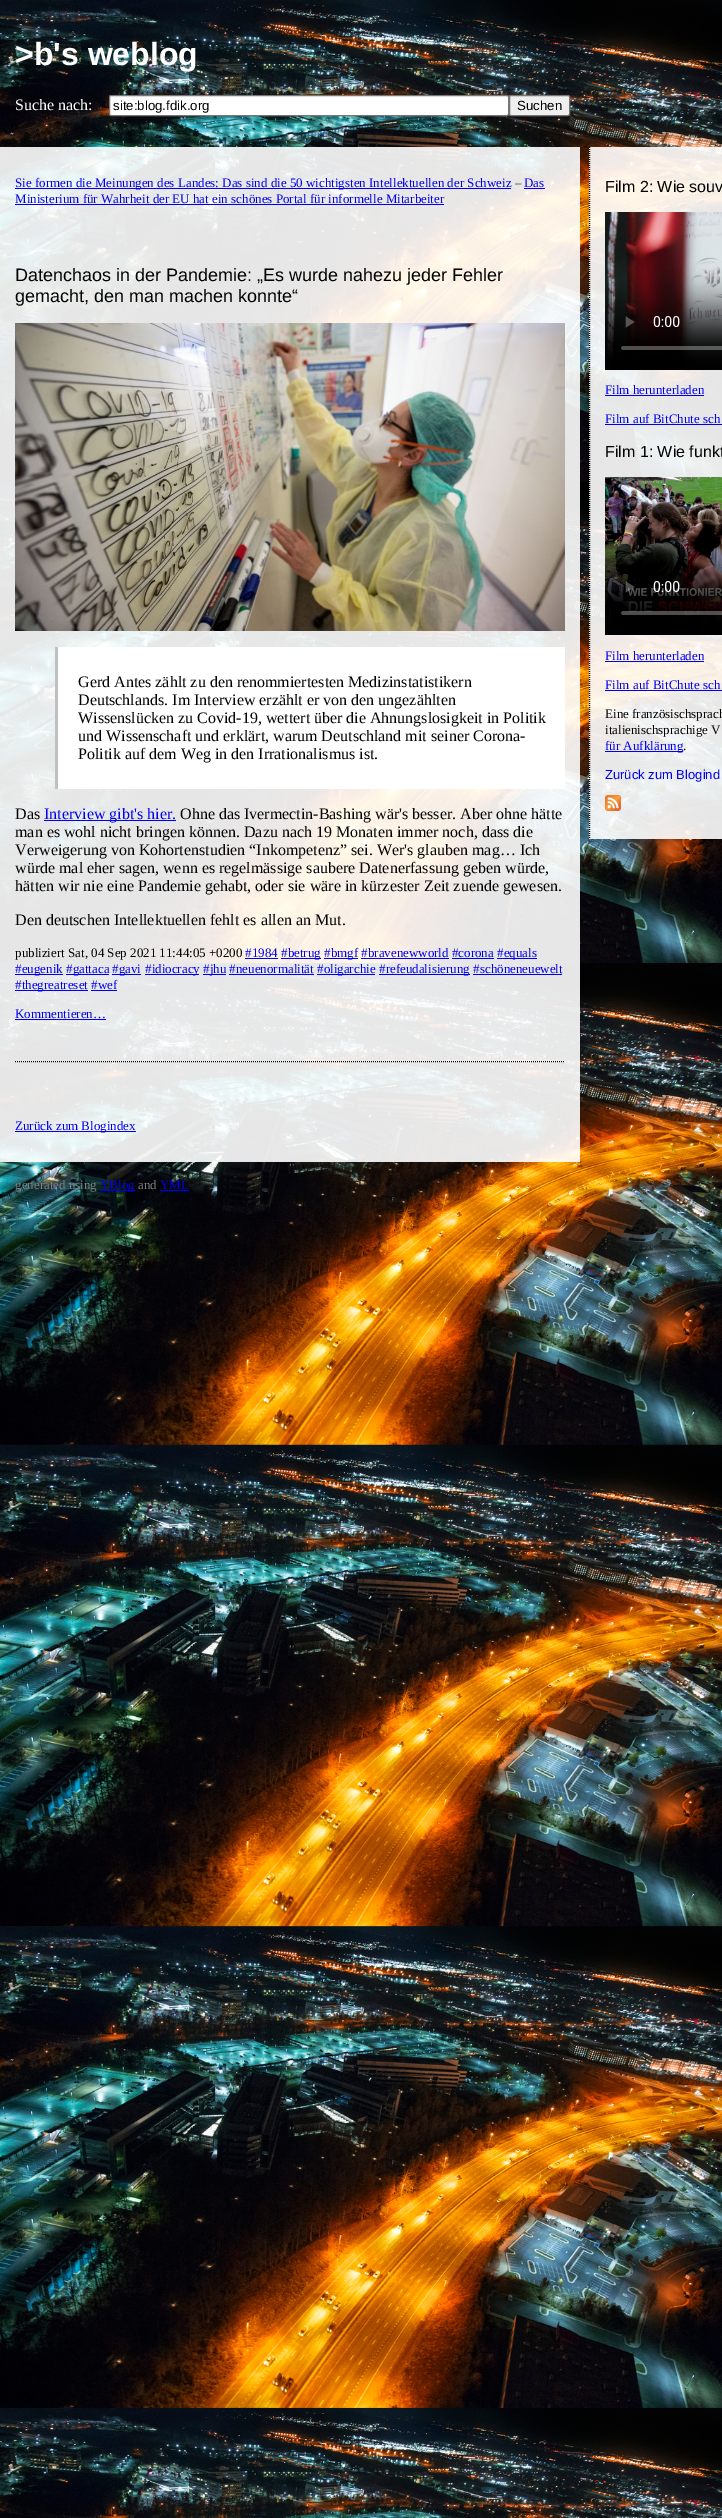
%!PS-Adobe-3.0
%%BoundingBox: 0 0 722 2518
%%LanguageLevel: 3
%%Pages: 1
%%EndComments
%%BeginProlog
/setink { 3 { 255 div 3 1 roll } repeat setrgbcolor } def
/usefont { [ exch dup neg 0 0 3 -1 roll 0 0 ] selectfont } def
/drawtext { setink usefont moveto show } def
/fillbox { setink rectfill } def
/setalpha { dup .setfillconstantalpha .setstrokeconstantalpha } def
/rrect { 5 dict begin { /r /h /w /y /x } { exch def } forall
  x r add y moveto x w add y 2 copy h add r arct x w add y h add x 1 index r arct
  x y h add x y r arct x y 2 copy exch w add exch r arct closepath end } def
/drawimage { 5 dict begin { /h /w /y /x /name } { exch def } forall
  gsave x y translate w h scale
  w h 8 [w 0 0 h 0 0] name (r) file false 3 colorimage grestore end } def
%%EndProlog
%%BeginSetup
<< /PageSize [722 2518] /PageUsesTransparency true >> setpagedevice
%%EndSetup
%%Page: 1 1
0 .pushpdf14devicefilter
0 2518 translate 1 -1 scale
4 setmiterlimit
0 0 722 2518 255 255 255 fillbox
(assets/img1.rgb) 0 0 722 2518 drawimage
(>b's weblog) 15 65 /LiberationSans-Bold 32 255 255 255 drawtext
(Suche nach:) 15 110 /LiberationSerif-Regular 16 255 255 255 drawtext
109.5 95.5 399 20 1.5 rrect gsave fill grestore
118 118 118 setink
stroke
(site:blog.fdik.org) 113 110 /LiberationSans-Regular 13.25 0 0 0 drawtext
239 239 239 setink
509.5 95.5 60 20 1.5 rrect gsave fill grestore
118 118 118 setink
stroke
(Suchen) 517 110 /LiberationSans-Regular 13.25 0 0 0 drawtext
0.9 setalpha
0 147 580 88 255 255 255 fillbox
1 setalpha
15 188 496 1 0 0 238 fillbox
(Sie formen die Meinungen des Landes: Das sind die 50 wichtigsten Intellektuellen der Schweiz) 15 187 /LiberationSerif-Regular 13 0 0 238 drawtext
(–) 515 187 /LiberationSerif-Regular 13 0 0 0 drawtext
(Das) 524 187 /LiberationSerif-Regular 13 0 0 238 drawtext
524 188 21 1 0 0 238 fillbox
(Ministerium für Wahrheit der EU hat ein schönes Portal für informelle Mitarbeiter) 15 203 /LiberationSerif-Regular 13 0 0 238 drawtext
15 204 429 1 0 0 238 fillbox
0.9 setalpha
0 235 580 855 255 255 255 fillbox
1 setalpha
(Datenchaos in der Pandemie: „Es wurde nahezu jeder Fehler) 15 281 /LiberationSans-Regular 18 0 0 0 drawtext
(gemacht, den man machen konnte“) 15 302 /LiberationSans-Regular 18 0 0 0 drawtext
(assets/img2.rgb) 15 323 550 308 drawimage
58 647 507 142 255 255 255 fillbox
55 647 3 142 192 192 192 fillbox
(Gerd Antes zählt zu den renommiertesten Medizinstatistikern) 78 687 /LiberationSerif-Regular 16 0 0 0 drawtext
(Deutschlands. Im Interview erzählt er von den ungezählten) 78 705 /LiberationSerif-Regular 16 0 0 0 drawtext
(Wissenslücken zu Covid-19, wettert über die Ahnungslosigkeit in Politik) 78 723 /LiberationSerif-Regular 16 0 0 0 drawtext
(und Wissenschaft und erklärt, warum Deutschland mit seiner Corona-) 78 741 /LiberationSerif-Regular 16 0 0 0 drawtext
(Politik auf dem Weg in den Irrationalismus ist.) 78 759 /LiberationSerif-Regular 16 0 0 0 drawtext
(Das) 15 819 /LiberationSerif-Regular 16 0 0 0 drawtext
44 820 132 1 0 0 238 fillbox
(Interview gibt's hier.) 44 819 /LiberationSerif-Regular 16 0 0 238 drawtext
(Ohne das Ivermectin-Bashing wär's besser. Aber ohne hätte) 180 819 /LiberationSerif-Regular 16 0 0 0 drawtext
(man es wohl nicht bringen können. Dazu nach 19 Monaten immer noch, dass die) 15 837 /LiberationSerif-Regular 16 0 0 0 drawtext
(Verweigerung von Kohortenstudien “Inkompetenz” sei. Wer's glauben mag… Ich) 15 855 /LiberationSerif-Regular 16 0 0 0 drawtext
(würde mal eher sagen, wenn es regelmässige saubere Datenerfassung geben würde,) 15 873 /LiberationSerif-Regular 16 0 0 0 drawtext
(hätten wir nie eine Pandemie gehabt, oder sie wäre in kürzester Zeit zuende gewesen.) 15 891 /LiberationSerif-Regular 16 0 0 0 drawtext
(Den deutschen Intellektuellen fehlt es allen an Mut.) 15 925 /LiberationSerif-Regular 16 0 0 0 drawtext
[1 1] 0 setdash
15 1061.5 moveto 565 1061.5 lineto stroke
(publiziert Sat, 04 Sep 2021 11:44:05 +0200) 15 957 /LiberationSerif-Regular 13 0 0 0 drawtext
(#1984) 245 957 /LiberationSerif-Regular 13 0 0 238 drawtext
245 958 33 1 0 0 238 fillbox
281 958 40 1 0 0 238 fillbox
(#betrug) 281 957 /LiberationSerif-Regular 13 0 0 238 drawtext
324 958 34 1 0 0 238 fillbox
(#bmgf #bravenewworld #corona) 324 957 /LiberationSerif-Regular 13 0 0 238 drawtext
497 958 40 1 0 0 238 fillbox
(#equals) 497 957 /LiberationSerif-Regular 13 0 0 238 drawtext
361 958 88 1 0 0 238 fillbox
452 958 42 1 0 0 238 fillbox
15 974 48 1 0 0 238 fillbox
(#eugenik) 15 973 /LiberationSerif-Regular 13 0 0 238 drawtext
66 974 43 1 0 0 238 fillbox
(#gattaca) 66 973 /LiberationSerif-Regular 13 0 0 238 drawtext
112 974 29 1 0 0 238 fillbox
(#gavi) 112 973 /LiberationSerif-Regular 13 0 0 238 drawtext
145 974 54 1 0 0 238 fillbox
(#idiocracy) 145 973 /LiberationSerif-Regular 13 0 0 238 drawtext
203 974 23 1 0 0 238 fillbox
(#jhu #neuenormalität) 203 973 /LiberationSerif-Regular 13 0 0 238 drawtext
317 974 58 1 0 0 238 fillbox
(#oligarchie) 317 973 /LiberationSerif-Regular 13 0 0 238 drawtext
379 974 91 1 0 0 238 fillbox
(#refeudalisierung #schöneneuewelt) 379 973 /LiberationSerif-Regular 13 0 0 238 drawtext
229 974 85 1 0 0 238 fillbox
473 974 89 1 0 0 238 fillbox
15 990 73 1 0 0 238 fillbox
(#thegreatreset #wef) 15 989 /LiberationSerif-Regular 13 0 0 238 drawtext
91 990 26 1 0 0 238 fillbox
(Kommentieren…) 15 1018 /LiberationSerif-Regular 13 0 0 238 drawtext
15 1019 91 1 0 0 238 fillbox
0.9 setalpha
0 1090 580 72 255 255 255 fillbox
1 setalpha
15 1131 121 1 0 0 238 fillbox
(Zurück zum Blogindex) 15 1130 /LiberationSerif-Regular 13 0 0 238 drawtext
0.9 setalpha
589 147 133 692 255 255 255 fillbox
1 setalpha
0 0 0 setink
589.5 147 moveto 589.5 839 lineto stroke
(Film 2: Wie souv) 605 192 /LiberationSans-Regular 16 0 0 0 drawtext
(assets/img3.rgb) 605 212 117 158 drawimage
(Film herunterladen) 605 394 /LiberationSerif-Regular 13 0 0 238 drawtext
605 395 99 1 0 0 238 fillbox
(Film auf BitChute sch) 605 423 /LiberationSerif-Regular 13 0 0 238 drawtext
605 424 117 1 0 0 238 fillbox
(Film 1: Wie funkt) 605 457 /LiberationSans-Regular 16 0 0 0 drawtext
(assets/img4.rgb) 605 477 117 158 drawimage
(Film herunterladen) 605 660 /LiberationSerif-Regular 13 0 0 238 drawtext
605 661 99 1 0 0 238 fillbox
(Film auf BitChute sch) 605 689 /LiberationSerif-Regular 13 0 0 238 drawtext
605 690 117 1 0 0 238 fillbox
(Eine französischsprach) 605 718 /LiberationSerif-Regular 13 0 0 0 drawtext
(italienischsprachige V) 605 734 /LiberationSerif-Regular 13 0 0 0 drawtext
605 751 78 1 0 0 238 fillbox
(für Aufklärung) 605 750 /LiberationSerif-Regular 13 0 0 238 drawtext
(.) 683 750 /LiberationSerif-Regular 13 0 0 0 drawtext
(Zurück zum Blogind) 605 779 /LiberationSans-Regular 13 0 0 238 drawtext
(assets/img5.rgb) 605 795 16 16 drawimage
(generated using) 15 1189 /LiberationSerif-Regular 13 128 128 128 drawtext
100 1190 35 1 0 0 238 fillbox
(YBlog) 100 1189 /LiberationSerif-Regular 13 0 0 238 drawtext
(and) 138 1189 /LiberationSerif-Regular 13 128 128 128 drawtext
(YML) 160 1189 /LiberationSerif-Regular 13 0 0 238 drawtext
160 1190 29 1 0 0 238 fillbox
.poppdf14devicefilter showpage
%%EOF
